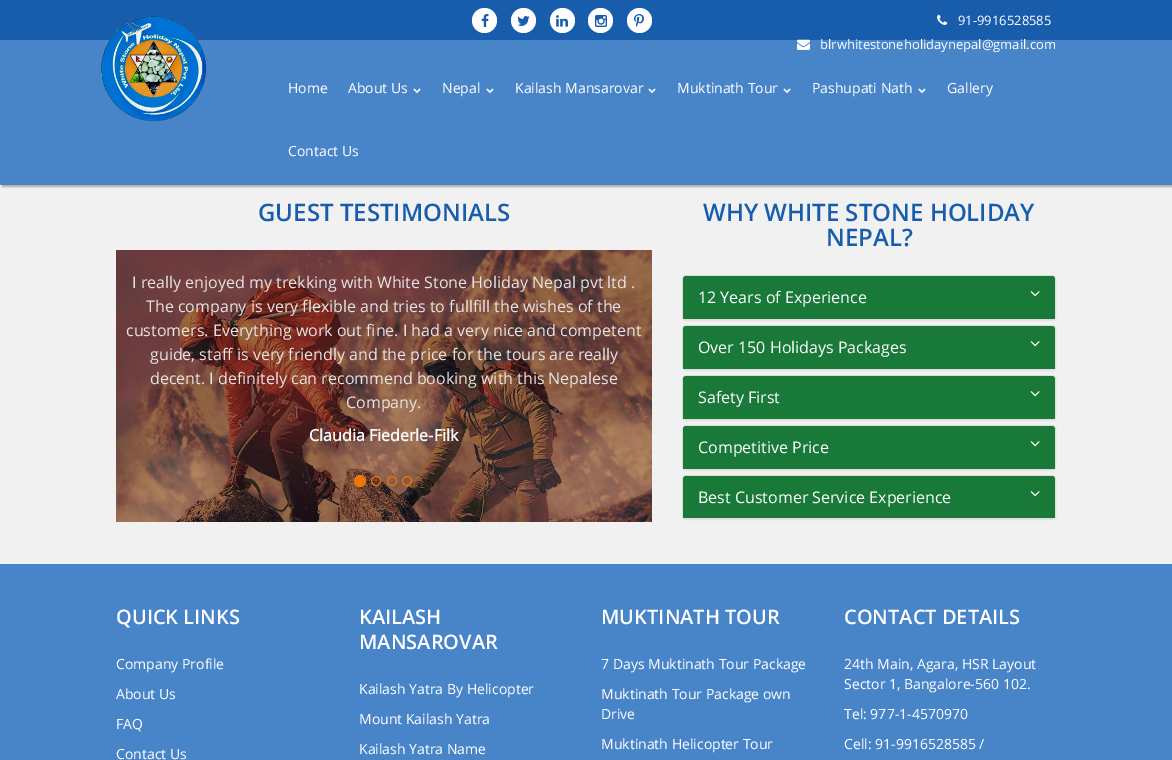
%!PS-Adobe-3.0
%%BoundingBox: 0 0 1172 760
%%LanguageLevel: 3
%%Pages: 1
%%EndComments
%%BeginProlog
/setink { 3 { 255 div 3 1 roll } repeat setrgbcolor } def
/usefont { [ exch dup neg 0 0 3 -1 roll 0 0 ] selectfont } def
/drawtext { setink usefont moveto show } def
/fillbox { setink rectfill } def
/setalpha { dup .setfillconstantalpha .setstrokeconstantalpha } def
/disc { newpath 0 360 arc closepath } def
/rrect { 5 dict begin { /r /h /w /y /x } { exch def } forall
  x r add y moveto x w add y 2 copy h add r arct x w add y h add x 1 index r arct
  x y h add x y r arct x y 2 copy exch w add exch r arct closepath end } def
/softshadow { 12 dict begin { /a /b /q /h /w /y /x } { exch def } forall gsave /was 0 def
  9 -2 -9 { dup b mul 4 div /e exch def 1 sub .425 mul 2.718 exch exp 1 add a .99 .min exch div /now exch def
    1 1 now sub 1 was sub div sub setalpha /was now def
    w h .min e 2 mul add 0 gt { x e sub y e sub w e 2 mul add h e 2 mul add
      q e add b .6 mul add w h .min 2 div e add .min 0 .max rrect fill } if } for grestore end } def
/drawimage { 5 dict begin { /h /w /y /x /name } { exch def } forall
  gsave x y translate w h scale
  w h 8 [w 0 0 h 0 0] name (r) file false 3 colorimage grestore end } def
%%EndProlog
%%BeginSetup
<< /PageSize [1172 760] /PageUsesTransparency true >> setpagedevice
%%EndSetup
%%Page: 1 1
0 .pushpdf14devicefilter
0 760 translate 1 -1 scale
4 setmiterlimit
0 0 1172 760 241 241 241 fillbox
0 0 0 setink
2 2 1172 185 0 1 0.3 softshadow
0 0 1172 40 24 93 172 fillbox
255 255 255 setink
484.5 20.5 12.5 disc fill
(assets/img1.rgb) 481 14 8 13 drawimage
523.5 20.5 12.5 disc fill
(assets/img2.rgb) 517 16 13 10 drawimage
562.5 20.5 12.5 disc fill
(assets/img3.rgb) 556 15 12 12 drawimage
600.5 20.5 12.5 disc fill
(assets/img4.rgb) 595 15 12 12 drawimage
639.5 20.5 12.5 disc fill
(assets/img5.rgb) 634 14 10 13 drawimage
(assets/img6.rgb) 937 14 11 11 drawimage
(91-9916528585) 958 25 /OpenSans-Regular 13 255 255 255 drawtext
0 40 1172 145 72 132 200 fillbox
(assets/img7.rgb) 797 39 13 11 drawimage
(blrwhitestoneholidaynepal@gmail.com) 820 49 /OpenSans-Regular 13 255 255 255 drawtext
(assets/img8.rgb) 101 16 105 105 drawimage
(Home) 288 93 /OpenSans-Regular 14 255 255 255 drawtext
(About Us) 348 93 /OpenSans-Regular 14 255 255 255 drawtext
(assets/img9.rgb) 413 88 8 6 drawimage
(Nepal) 442 93 /OpenSans-Regular 14 255 255 255 drawtext
(assets/img9.rgb) 486 88 8 6 drawimage
(Kailash Mansarovar) 515 93 /OpenSans-Regular 14 255 255 255 drawtext
(assets/img9.rgb) 648 88 8 6 drawimage
(Muktinath Tour) 677 93 /OpenSans-Regular 14 255 255 255 drawtext
(assets/img9.rgb) 783 88 8 6 drawimage
(Pashupati Nath) 812 93 /OpenSans-Regular 14 255 255 255 drawtext
(assets/img9.rgb) 918 88 8 6 drawimage
(Gallery) 947 93 /OpenSans-Regular 14 255 255 255 drawtext
(Contact Us) 288 156 /OpenSans-Regular 14 255 255 255 drawtext
(GUEST TESTIMONIALS) 258 221 /OpenSans-SemiBold 24 24 93 172 drawtext
(assets/img10.rgb) 116 250 536 272 drawimage
(I really enjoyed my trekking with White Stone Holiday Nepal pvt ltd .) 132 288 /OpenSans-Regular 16 230 227 227 drawtext
(The company is very flexible and tries to fullfill the wishes of the) 146 312 /OpenSans-Regular 16 230 227 227 drawtext
(customers. Everything work out fine. I had a very nice and competent) 126 336 /OpenSans-Regular 16 230 227 227 drawtext
(guide, staff is very friendly and the price for the tours are really) 150 360 /OpenSans-Regular 16 230 227 227 drawtext
(decent. I definitely can recommend booking with this Nepalese) 150 384 /OpenSans-Regular 16 230 227 227 drawtext
(Company.) 346 408 /OpenSans-Regular 16 230 227 227 drawtext
(Claudia Fiederle-Filk) 309 441 /OpenSans-Bold 16 249 249 249 drawtext
237 119 1 setink
360 481 5.5 disc gsave fill grestore
stroke
376 481 4.5 disc stroke
392 481 4.5 disc stroke
407 481 4.5 disc stroke
(WHY WHITE STONE HOLIDAY) 703 221 /OpenSans-SemiBold 24 24 93 172 drawtext
(NEPAL?) 826 246 /OpenSans-SemiBold 24 24 93 172 drawtext
0 0 0 setink
682 276 374 45 4 0.5 0.05 softshadow
221 221 221 setink
682.5 275.5 373 44 3.5 rrect stroke
25 121 56 setink
686 276 moveto 1052 276 lineto 1053.5 276 1055 277.5 1055 279 curveto 1055 319 lineto 683 319 lineto 683 279 lineto 683 277.5 684.5 276 686 276 curveto closepath fill
(12 Years of Experience) 698 303 /OpenSans-Regular 16 255 255 255 drawtext
(assets/img11.rgb) 1030 291 10 6 drawimage
0 0 0 setink
682 326 374 45 4 0.5 0.05 softshadow
221 221 221 setink
682.5 325.5 373 44 3.5 rrect stroke
25 121 56 setink
686 326 moveto 1052 326 lineto 1053.5 326 1055 327.5 1055 329 curveto 1055 369 lineto 683 369 lineto 683 329 lineto 683 327.5 684.5 326 686 326 curveto closepath fill
(Over 150 Holidays Packages) 698 353 /OpenSans-Regular 16 255 255 255 drawtext
(assets/img11.rgb) 1030 341 10 6 drawimage
0 0 0 setink
682 376 374 45 4 0.5 0.05 softshadow
221 221 221 setink
682.5 375.5 373 44 3.5 rrect stroke
25 121 56 setink
686 376 moveto 1052 376 lineto 1053.5 376 1055 377.5 1055 379 curveto 1055 419 lineto 683 419 lineto 683 379 lineto 683 377.5 684.5 376 686 376 curveto closepath fill
(Safety First) 698 403 /OpenSans-Regular 16 255 255 255 drawtext
(assets/img11.rgb) 1030 391 10 6 drawimage
0 0 0 setink
682 426 374 45 4 0.5 0.05 softshadow
221 221 221 setink
682.5 425.5 373 44 3.5 rrect stroke
25 121 56 setink
686 426 moveto 1052 426 lineto 1053.5 426 1055 427.5 1055 429 curveto 1055 469 lineto 683 469 lineto 683 429 lineto 683 427.5 684.5 426 686 426 curveto closepath fill
(Competitive Price) 698 453 /OpenSans-Regular 16 255 255 255 drawtext
(assets/img11.rgb) 1030 441 10 6 drawimage
0 0 0 setink
682 476 374 44 4 0.5 0.05 softshadow
221 221 221 setink
682.5 475.5 373 43 3.5 rrect stroke
25 121 56 setink
686 476 moveto 1052 476 lineto 1053.5 476 1055 477.5 1055 479 curveto 1055 518 lineto 683 518 lineto 683 479 lineto 683 477.5 684.5 476 686 476 curveto closepath fill
(Best Customer Service Experience) 698 503 /OpenSans-Regular 16 255 255 255 drawtext
(assets/img11.rgb) 1030 491 10 6 drawimage
0 564 1172 196 72 132 200 fillbox
(QUICK LINKS) 116 624 /OpenSans-SemiBold 20 255 255 255 drawtext
(Company Profile) 116 669 /OpenSans-Regular 14 255 255 255 drawtext
(About Us) 116 699 /OpenSans-Regular 14 255 255 255 drawtext
(FAQ) 116 729 /OpenSans-Regular 14 255 255 255 drawtext
(Contact Us) 116 759 /OpenSans-Regular 14 255 255 255 drawtext
(KAILASH) 359 624 /OpenSans-SemiBold 20 255 255 255 drawtext
(MANSAROVAR) 359 649 /OpenSans-SemiBold 20 255 255 255 drawtext
(Kailash Yatra By Helicopter) 359 694 /OpenSans-Regular 14 255 255 255 drawtext
(Mount Kailash Yatra) 359 724 /OpenSans-Regular 14 255 255 255 drawtext
(Kailash Yatra Name) 359 754 /OpenSans-Regular 14 255 255 255 drawtext
(MUKTINATH TOUR) 601 624 /OpenSans-SemiBold 20 255 255 255 drawtext
(7 Days Muktinath Tour Package) 601 669 /OpenSans-Regular 14 255 255 255 drawtext
(Muktinath Tour Package own) 601 699 /OpenSans-Regular 14 255 255 255 drawtext
(Drive) 601 719 /OpenSans-Regular 14 255 255 255 drawtext
(Muktinath Helicopter Tour) 601 749 /OpenSans-Regular 14 255 255 255 drawtext
(CONTACT DETAILS) 844 624 /OpenSans-SemiBold 20 255 255 255 drawtext
(24th Main, Agara, HSR Layout) 844 669 /OpenSans-Regular 14 255 255 255 drawtext
(Sector 1, Bangalore-560 102.) 844 689 /OpenSans-Regular 14 255 255 255 drawtext
(Tel: 977-1-4570970) 844 719 /OpenSans-Regular 14 255 255 255 drawtext
(Cell: 91-9916528585 /) 844 749 /OpenSans-Regular 14 255 255 255 drawtext
.poppdf14devicefilter showpage
%%EOF
